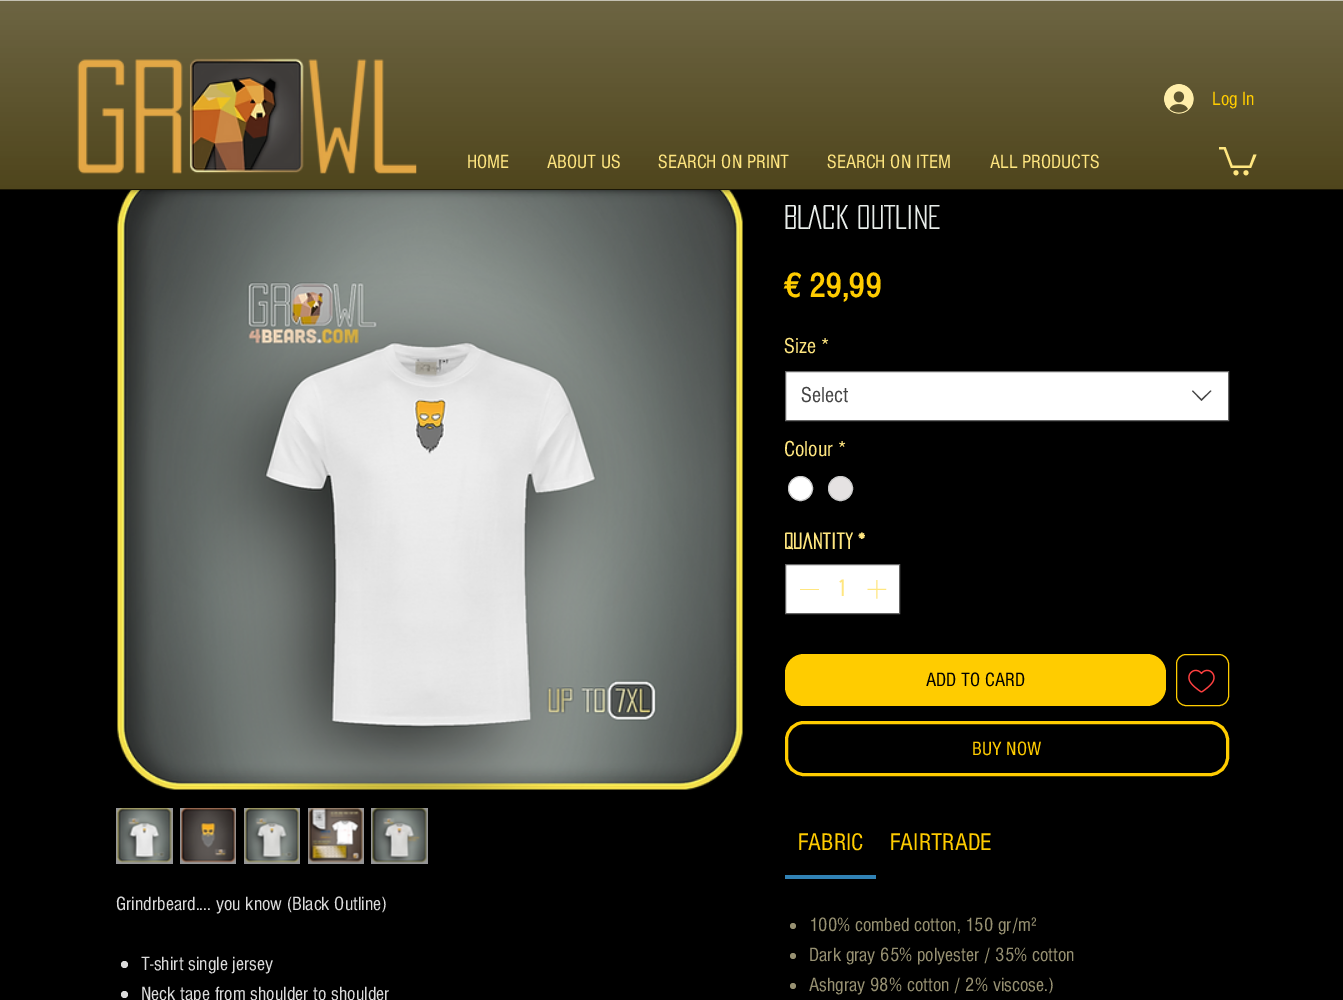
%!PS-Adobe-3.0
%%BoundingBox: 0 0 1343 1000
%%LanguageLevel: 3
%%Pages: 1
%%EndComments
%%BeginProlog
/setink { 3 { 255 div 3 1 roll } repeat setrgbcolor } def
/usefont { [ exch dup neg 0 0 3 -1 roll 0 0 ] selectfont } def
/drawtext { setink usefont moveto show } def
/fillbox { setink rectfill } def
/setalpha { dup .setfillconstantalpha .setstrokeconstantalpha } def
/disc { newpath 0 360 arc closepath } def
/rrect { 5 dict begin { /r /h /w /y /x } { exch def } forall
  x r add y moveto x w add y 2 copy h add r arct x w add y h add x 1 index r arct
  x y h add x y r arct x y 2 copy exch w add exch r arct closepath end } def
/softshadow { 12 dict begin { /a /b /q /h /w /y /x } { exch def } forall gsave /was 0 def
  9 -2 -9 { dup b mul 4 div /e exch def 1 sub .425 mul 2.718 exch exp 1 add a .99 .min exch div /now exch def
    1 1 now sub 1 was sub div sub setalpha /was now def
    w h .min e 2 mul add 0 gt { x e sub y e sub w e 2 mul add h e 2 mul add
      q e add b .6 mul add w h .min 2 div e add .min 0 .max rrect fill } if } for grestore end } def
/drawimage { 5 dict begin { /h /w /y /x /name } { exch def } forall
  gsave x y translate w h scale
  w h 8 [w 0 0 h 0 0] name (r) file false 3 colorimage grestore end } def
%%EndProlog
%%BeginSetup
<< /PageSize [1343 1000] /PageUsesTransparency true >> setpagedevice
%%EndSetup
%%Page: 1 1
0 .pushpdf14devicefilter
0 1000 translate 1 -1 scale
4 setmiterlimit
0 0 1343 1000 0 0 0 fillbox
(assets/img4.rgb) 117 190 626 600 drawimage
0 0 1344 190 0 3 0.6 softshadow
0 1 1343 188 58 47 1 fillbox
(assets/img1.rgb) 0 1 1343 188 drawimage
0 189 1343 1 27 23 6 fillbox
0 0 1343 1 196 193 179 fillbox
(assets/img2.rgb) 77 58 340 116 drawimage
(assets/img3.rgb) 1164 84 30 30 drawimage
(Log In) 1212 105 /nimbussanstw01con-Regular 20 255 204 0 drawtext
(HOME) 467 168 /nimbussanstw01con-Regular 20 255 230 128 drawtext
(ABOUT US) 547 168 /nimbussanstw01con-Regular 20 255 230 128 drawtext
(SEARCH ON PRINT) 658 168 /nimbussanstw01con-Regular 20 255 230 128 drawtext
(SEARCH ON ITEM) 827 168 /nimbussanstw01con-Regular 20 255 230 128 drawtext
(ALL PRODUCTS) 990 168 /nimbussanstw01con-Regular 20 255 230 128 drawtext
1256.5 154.5 moveto 1251 168 lineto 1231 168 lineto 1224 149.5 lineto 1219 149.5 lineto 1219 147 lineto 1225.5 147 lineto 1232.5 165.5 lineto 1249.5 165.5 lineto 1253.5 154.5 lineto fill
1246 172.8 2.5 disc fill
1236 172.8 2.5 disc fill
116 808 57 56 149 149 150 fillbox
(assets/img5.rgb) 117 808 55 55 drawimage
180 808 56 56 149 149 150 fillbox
(assets/img6.rgb) 181 808 55 55 drawimage
244 808 56 56 149 149 150 fillbox
(assets/img7.rgb) 244 808 55 55 drawimage
308 808 56 56 149 149 150 fillbox
(assets/img8.rgb) 308 808 55 55 drawimage
371 808 57 56 149 149 150 fillbox
(assets/img9.rgb) 372 808 55 55 drawimage
(Grindrbeard.... you know \(Black Outline\)) 116 910 /nimbussanstw01con-Regular 20 219 219 219 drawtext
124.5 964.5 3.5 disc fill
(T-shirt single jersey) 141 970 /nimbussanstw01con-Regular 20 219 219 219 drawtext
124.5 994.5 3.5 disc fill
(Neck tape from shoulder to shoulder) 141 1000 /nimbussanstw01con-Regular 20 219 219 219 drawtext
(BLACK OUTLINE) 784 229 /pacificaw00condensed-Regular 30 232 237 234 drawtext
(€ 29,99) 784 297 /nimbussanstw01con-Bold 35 255 204 0 drawtext
(Size *) 784 353 /nimbussanstw01con-Regular 22.5 255 230 128 drawtext
255 255 255 setink
785.5 371.5 moveto 1228.5 371.5 lineto 1228.5 420.5 lineto 785.5 420.5 lineto closepath gsave fill grestore
102 102 102 setink
stroke
(Select) 801 402 /nimbussanstw01con-Regular 22.5 68 68 68 drawtext
1210.5 390.5 moveto 1211.5 391 lineto 1201.5 401 lineto 1192 391 lineto 1193 390.5 lineto 1201.5 399 lineto closepath eofill
(Colour *) 784 456 /nimbussanstw01con-Regular 22.5 255 230 128 drawtext
255 255 255 setink
800.5 488.5 12 disc gsave fill grestore
201 201 201 setink
stroke
229 226 226 setink
840.5 488.5 12 disc gsave fill grestore
201 201 201 setink
stroke
(Quantity) 784 549 /pacificaw00condensed-Bold 20 255 230 128 drawtext
(*) 858 549 /pacificaw00condensed-Bold 20 255 230 128 drawtext
255 255 255 setink
785.5 564.5 moveto 899.5 564.5 lineto 899.5 613.5 lineto 785.5 613.5 lineto closepath gsave fill grestore
102 102 102 setink
stroke
800 589 19 1 255 230 128 fillbox
(1) 839 596 /pacificaw00condensed-Bold 20 255 230 128 drawtext
(assets/img10.rgb) 867 580 20 19 drawimage
255 204 0 setink
785 654 381 52 19 rrect fill
(ADD TO CARD) 926 686 /nimbussanstw01con-Regular 20 0 0 0 drawtext
255 204 0 setink
1176.5 654.5 52 51 9.5 rrect stroke
(assets/img11.rgb) 1188 669 27 24 drawimage
3 setlinewidth
786.5 722.5 441 52 17.5 rrect stroke
(BUY NOW) 972 755 /nimbussanstw01con-Regular 20 255 204 0 drawtext
785 875 91 4 49 130 181 fillbox
(FABRIC) 798 850 /nimbussanstw01con-Regular 25 255 204 0 drawtext
(FAIRTRADE) 890 850 /nimbussanstw01con-Regular 25 255 204 0 drawtext
151 145 114 setink
793 926 3 disc fill
(100% combed cotton, 150 gr/m²) 809 931 /nimbussanstw01con-Regular 20 151 145 114 drawtext
793 956 3 disc fill
(Dark gray 65% polyester / 35% cotton) 809 961 /nimbussanstw01con-Regular 20 151 145 114 drawtext
793 986 3 disc fill
(Ashgray 98% cotton / 2% viscose.\)) 809 991 /nimbussanstw01con-Regular 20 151 145 114 drawtext
.poppdf14devicefilter showpage
%%EOF
